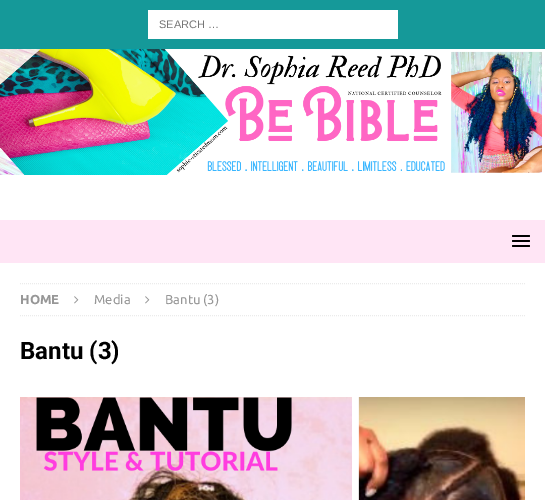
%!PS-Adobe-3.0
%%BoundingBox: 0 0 545 500
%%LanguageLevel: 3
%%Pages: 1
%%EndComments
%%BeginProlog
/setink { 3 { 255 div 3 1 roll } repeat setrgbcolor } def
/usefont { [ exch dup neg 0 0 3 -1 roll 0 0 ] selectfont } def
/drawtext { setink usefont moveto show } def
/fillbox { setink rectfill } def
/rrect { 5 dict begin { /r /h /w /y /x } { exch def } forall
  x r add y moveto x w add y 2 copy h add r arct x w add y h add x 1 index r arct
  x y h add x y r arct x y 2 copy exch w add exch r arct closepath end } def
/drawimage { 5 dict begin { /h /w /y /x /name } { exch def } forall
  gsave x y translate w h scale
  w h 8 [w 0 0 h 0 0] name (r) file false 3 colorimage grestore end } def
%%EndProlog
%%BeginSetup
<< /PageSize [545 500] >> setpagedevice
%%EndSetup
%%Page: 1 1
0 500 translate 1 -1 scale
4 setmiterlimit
0 0 545 500 21 153 153 fillbox
148 10 250 29 255 255 255 fillbox
(SEARCH …) 159 28 /LiberationSans-Regular 11 117 117 117 drawtext
0 49 545 171 255 255 255 fillbox
(assets/img1.rgb) 0 49 542 126 drawimage
0 220 545 43 255 229 245 fillbox
0 0 0 setink
512 235 18 2 1 rrect fill
512 240 18 2 1 rrect fill
512 245 18 2 1 rrect fill
0 263 545 237 255 255 255 fillbox
235 235 235 setink
[1 1] 0 setdash
20 283.5 moveto 525 283.5 lineto stroke
20 315.5 moveto 525 315.5 lineto stroke
(HOME) 20 304 /Ubuntu-Bold 13 151 151 151 drawtext
(assets/img2.rgb) 74 296 5 8 drawimage
(Media) 94 304 /Ubuntu-Regular 13 151 151 151 drawtext
(assets/img2.rgb) 145 296 5 8 drawimage
(Bantu \(3\)) 165 304 /Ubuntu-Regular 13 151 151 151 drawtext
(Bantu \(3\)) 20 359 /Roboto-Bold 24 0 0 0 drawtext
(assets/img3.rgb) 20 397 505 103 drawimage
showpage
%%EOF
